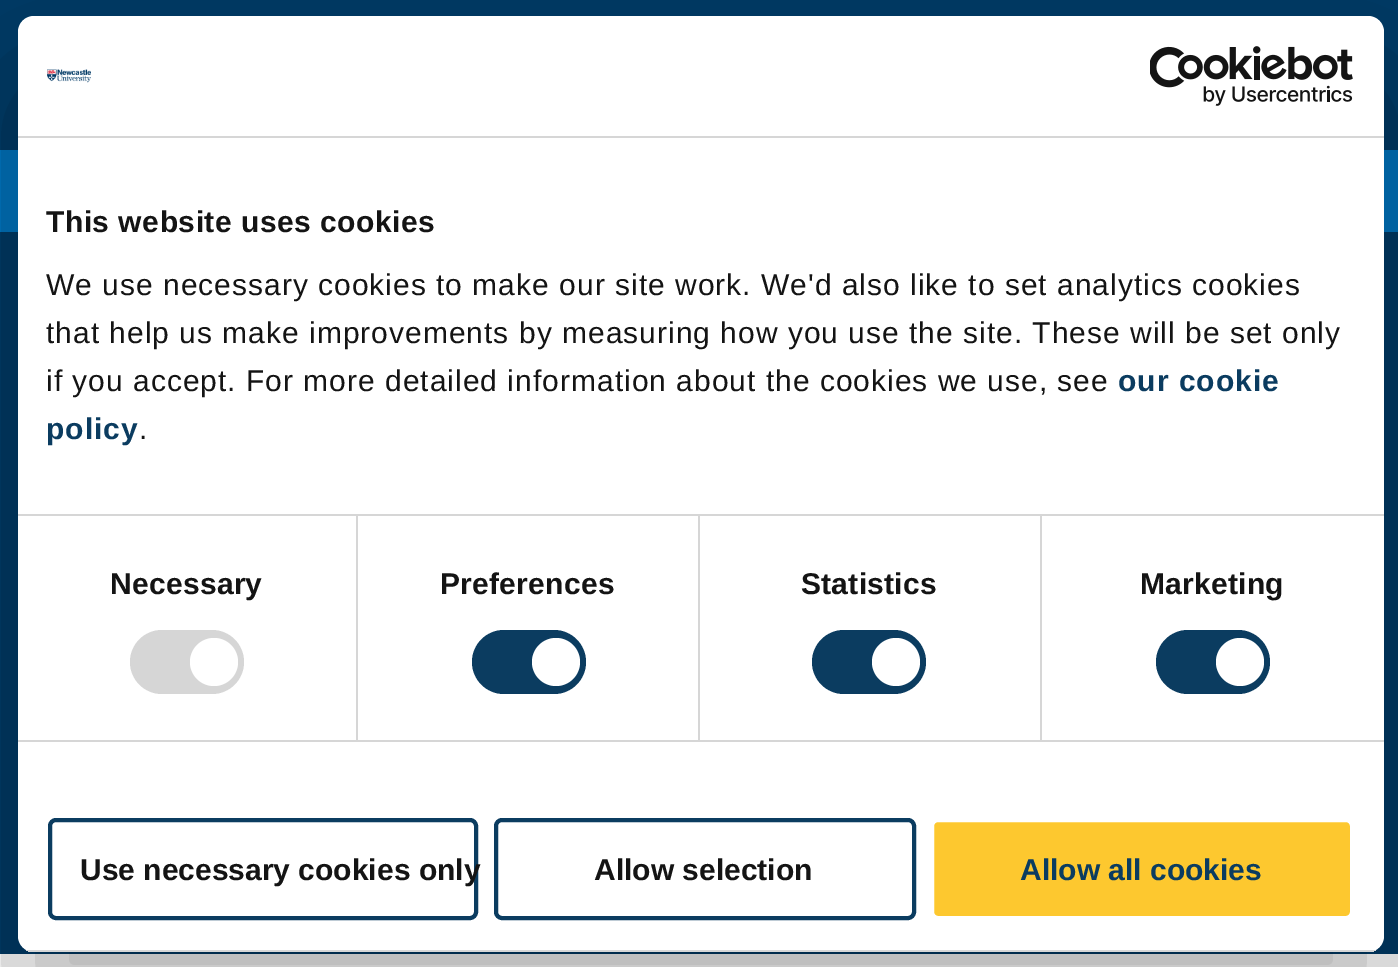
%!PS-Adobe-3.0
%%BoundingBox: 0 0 1398 967
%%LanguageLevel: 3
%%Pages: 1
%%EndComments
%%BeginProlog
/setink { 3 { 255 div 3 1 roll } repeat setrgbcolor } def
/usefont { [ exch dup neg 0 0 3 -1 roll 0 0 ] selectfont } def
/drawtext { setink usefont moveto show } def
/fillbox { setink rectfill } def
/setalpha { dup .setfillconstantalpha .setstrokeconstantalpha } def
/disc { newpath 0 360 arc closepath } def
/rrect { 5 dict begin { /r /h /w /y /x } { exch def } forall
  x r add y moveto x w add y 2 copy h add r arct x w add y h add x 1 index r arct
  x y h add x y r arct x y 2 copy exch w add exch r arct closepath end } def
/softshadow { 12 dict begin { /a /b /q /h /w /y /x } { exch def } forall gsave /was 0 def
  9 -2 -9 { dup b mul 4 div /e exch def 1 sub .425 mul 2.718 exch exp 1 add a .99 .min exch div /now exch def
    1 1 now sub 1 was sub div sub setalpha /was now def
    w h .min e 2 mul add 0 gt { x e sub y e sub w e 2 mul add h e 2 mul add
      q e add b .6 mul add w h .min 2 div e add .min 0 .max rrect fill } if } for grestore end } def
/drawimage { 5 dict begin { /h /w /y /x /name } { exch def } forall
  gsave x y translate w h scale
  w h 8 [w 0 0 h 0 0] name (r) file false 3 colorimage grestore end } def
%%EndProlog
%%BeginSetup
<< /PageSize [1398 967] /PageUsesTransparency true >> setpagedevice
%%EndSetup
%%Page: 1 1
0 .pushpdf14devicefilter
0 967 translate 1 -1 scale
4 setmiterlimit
0 0 1398 967 255 255 255 fillbox
0 0 1398 150 0 58 101 fillbox
0 150 1398 82 0 115 188 fillbox
0 232 1398 722 0 58 101 fillbox
0 0 0 setink
18 80 1366 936 16 68 0.3 softshadow
255 255 255 setink
18 16 1366 936 16 rrect fill
18 136 1366 2 214 214 214 fillbox
(assets/img1.rgb) 47 69 44 14 drawimage
(assets/img2.rgb) 1150 46 203 60 drawimage
18 514 1366 2 214 214 214 fillbox
/LiberationSans-Bold 30 usefont
20 20 20 setink
46 232 moveto 0.5 0 (This website uses cookies) ashow
/LiberationSans-Regular 30 usefont
46 295 moveto 1 0 (We use necessary cookies to make our site work. We'd also like to set analytics cookies) ashow
46 343 moveto 1 0 (that help us make improvements by measuring how you use the site. These will be set only) ashow
46 391 moveto 1 0 (if you accept. For more detailed information about the cookies we use, see) ashow
/LiberationSans-Bold 30 usefont
11 60 96 setink
1118 391 moveto 1 0 (our cookie) ashow
46 439 moveto 1 0 (policy) ashow
/LiberationSans-Regular 30 usefont
20 20 20 setink
139 439 moveto 1 0 (.) ashow
18 740 1366 2 214 214 214 fillbox
356 516 2 224 214 214 214 fillbox
/LiberationSans-Bold 30 usefont
20 20 20 setink
110 594 moveto 0.25 0 (Necessary) ashow
214 214 214 setink
130 630 114 64 32 rrect fill
255 255 255 setink
214 662 24 disc fill
698 516 2 224 214 214 214 fillbox
20 20 20 setink
440 594 moveto 0.25 0 (Preferences) ashow
11 60 96 setink
472 630 114 64 32 rrect fill
255 255 255 setink
556 662 24 disc fill
1040 516 2 224 214 214 214 fillbox
20 20 20 setink
801 594 moveto 0.25 0 (Statistics) ashow
11 60 96 setink
812 630 114 64 32 rrect fill
255 255 255 setink
896 662 24 disc fill
20 20 20 setink
1140 594 moveto 0.25 0 (Marketing) ashow
11 60 96 setink
1156 630 114 64 32 rrect fill
255 255 255 setink
1240 662 24 disc fill
gsave
18 16 1366 936 16 rrect clip newpath
18 950 1366 2 214 214 214 fillbox
grestore
11 60 96 setink
4 setlinewidth
50 820 426 98 6 rrect stroke
(Use necessary cookies only) 80 880 /LiberationSans-Bold 30 20 20 20 drawtext
11 60 96 setink
496 820 418 98 6 rrect stroke
(Allow selection) 594 880 /LiberationSans-Bold 30 20 20 20 drawtext
253 200 47 setink
932 820 420 98 6 rrect gsave fill grestore
255 255 255 setink
stroke
(Allow all cookies) 1020 880 /LiberationSans-Bold 30 11 60 96 drawtext
.poppdf14devicefilter showpage
%%EOF
